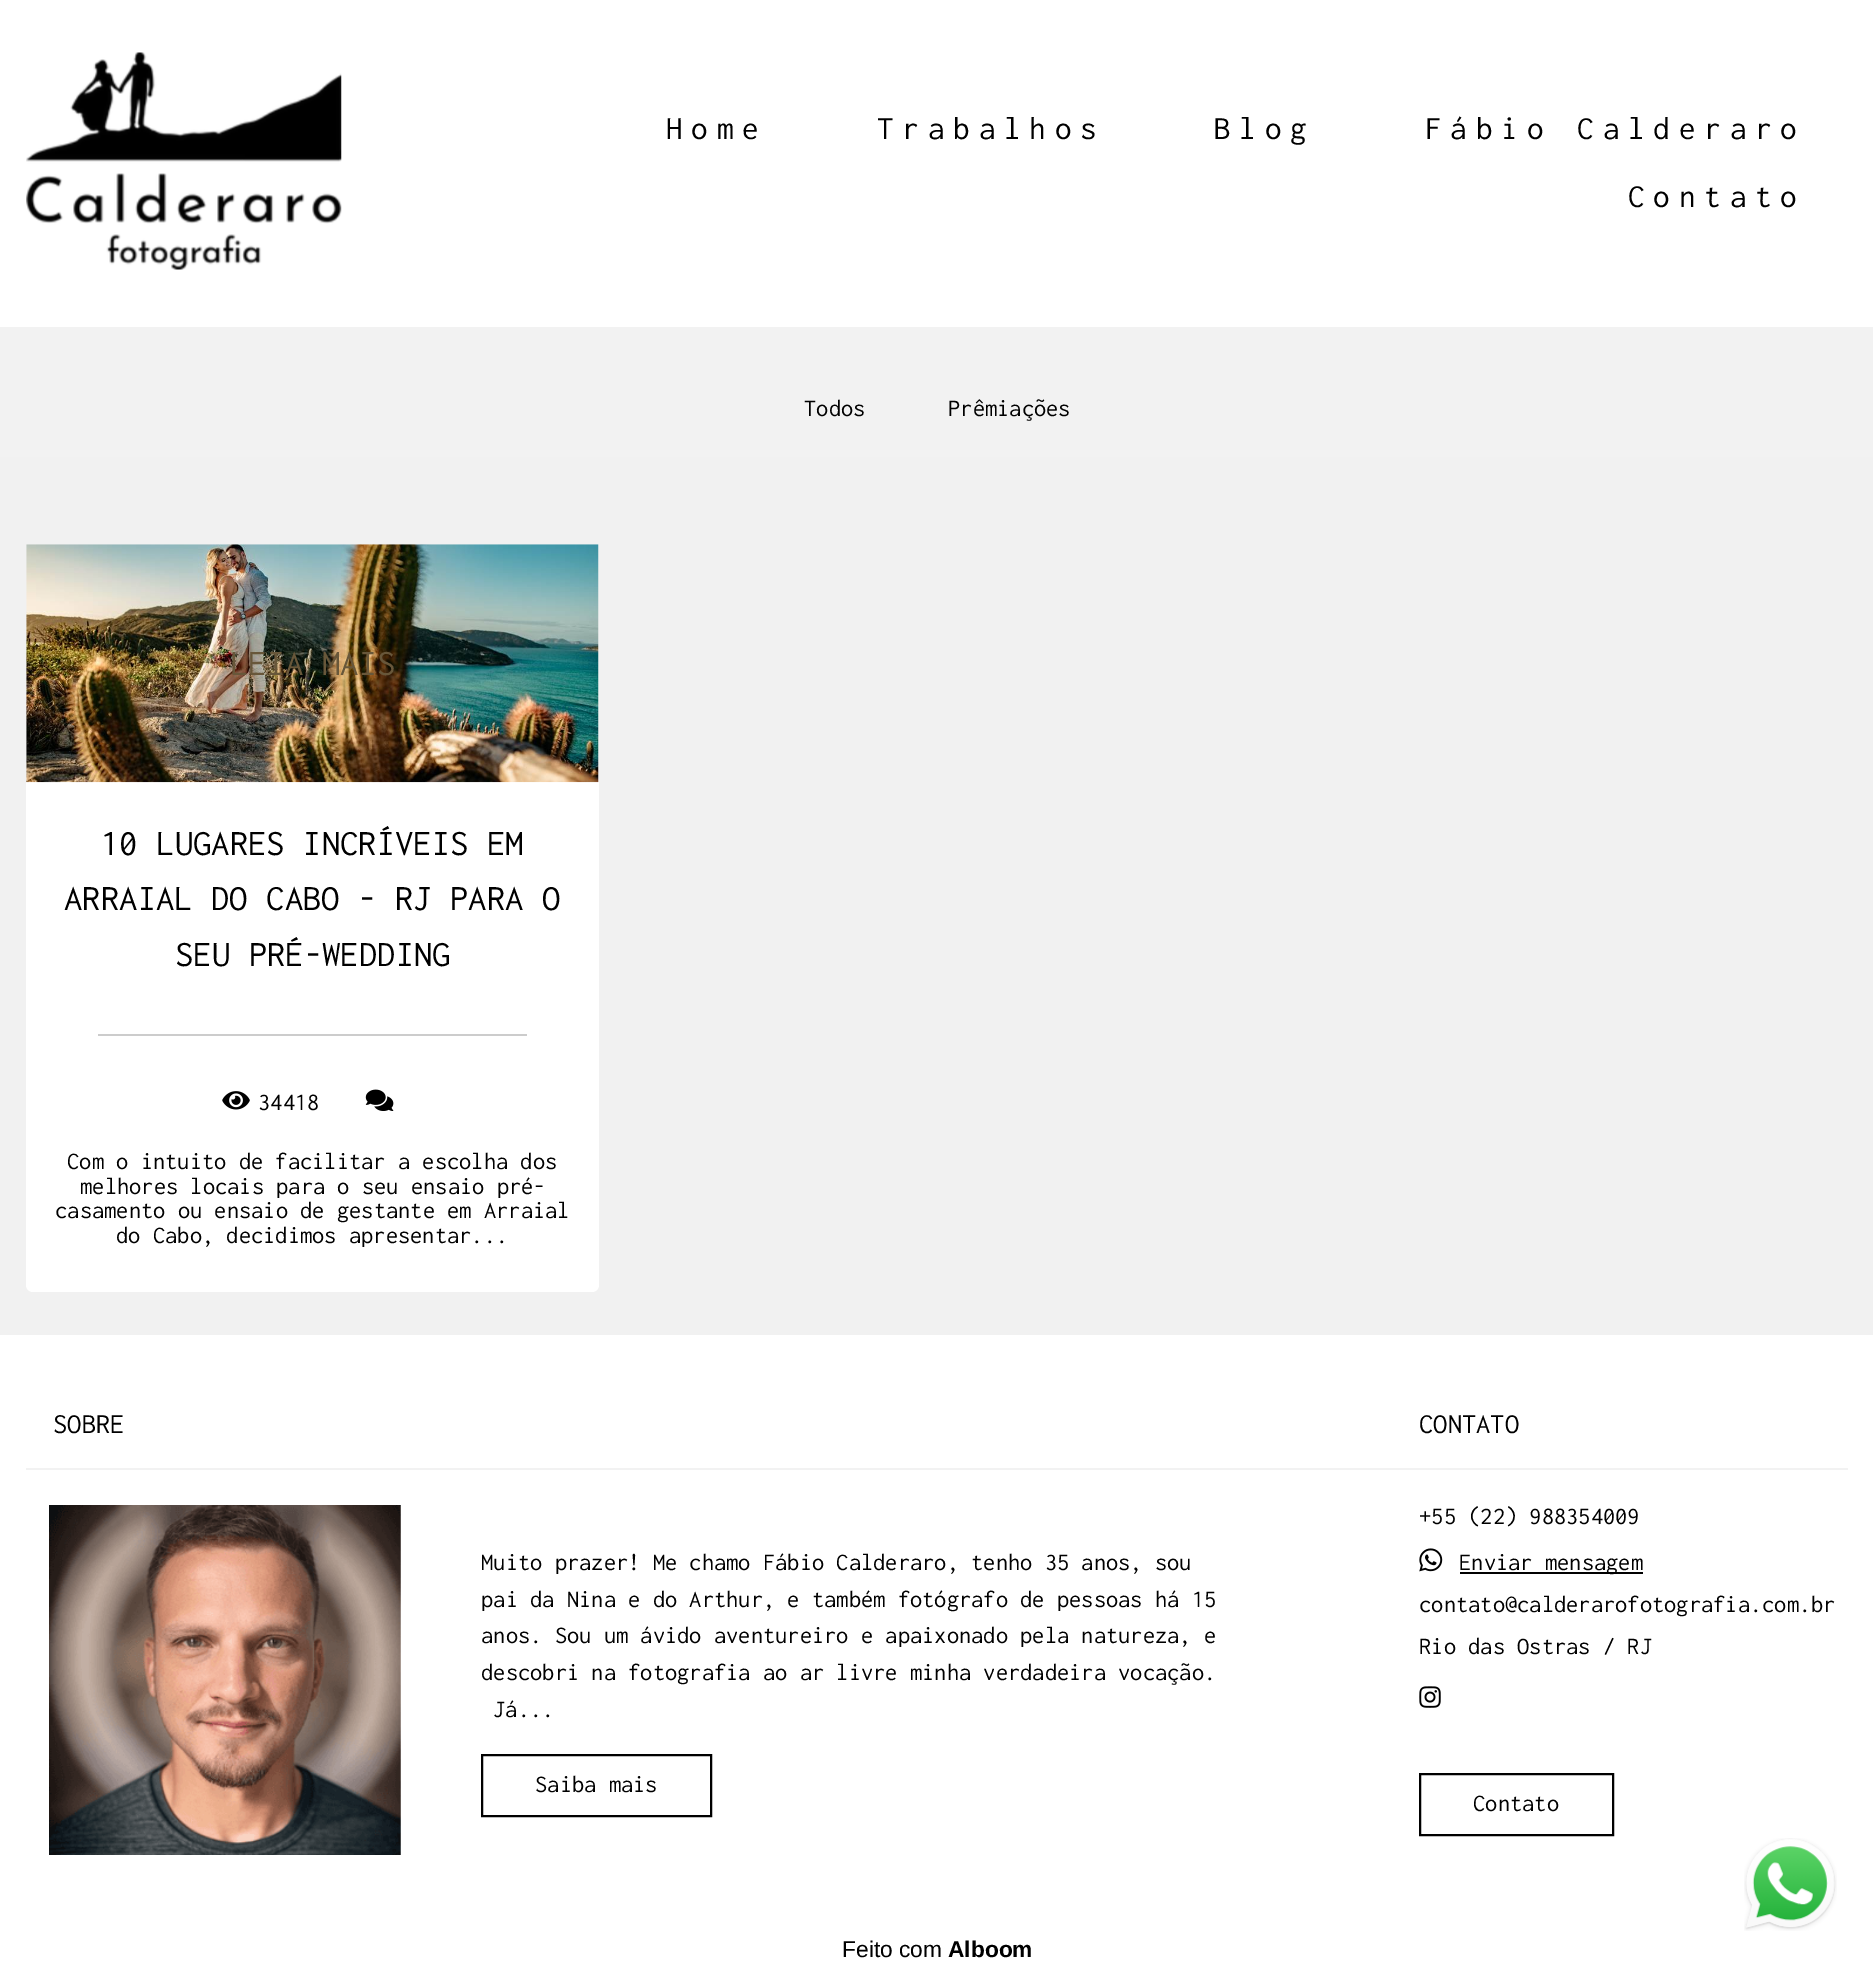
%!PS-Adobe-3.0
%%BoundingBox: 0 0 1873 1976
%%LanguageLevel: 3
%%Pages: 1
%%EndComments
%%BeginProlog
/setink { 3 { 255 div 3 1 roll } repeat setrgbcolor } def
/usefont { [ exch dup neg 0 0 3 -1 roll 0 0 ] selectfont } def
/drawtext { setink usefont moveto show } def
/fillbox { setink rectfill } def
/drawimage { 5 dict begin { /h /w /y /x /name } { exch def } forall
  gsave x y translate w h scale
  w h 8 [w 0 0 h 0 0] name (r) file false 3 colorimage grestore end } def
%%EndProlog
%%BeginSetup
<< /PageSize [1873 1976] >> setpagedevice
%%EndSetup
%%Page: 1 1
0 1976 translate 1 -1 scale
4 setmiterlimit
0 0 1873 1976 255 255 255 fillbox
(assets/img1.rgb) 26 52 316 218 drawimage
/Inconsolata-Regular 33.25 usefont
0 0 0 setink
666 139 moveto 8.75 0 (Home) ashow
877 139 moveto 8.75 0 (Trabalhos) ashow
1214 139 moveto 8.75 0 (Blog) ashow
1425 139 moveto 8.75 0 (Fábio Calderaro) ashow
1628 207 moveto 8.75 0 (Contato) ashow
0 327 1873 130 242 242 242 fillbox
(Todos) 804 416 /Inconsolata-Regular 24.5 0 0 0 drawtext
(Prêmiações) 948 416 /Inconsolata-Regular 24.5 0 0 0 drawtext
0 457 1873 878 241 241 241 fillbox
255 255 255 setink
26 782 moveto 599 782 lineto 599 1285 lineto 599 1289 596 1292 592 1292 curveto 33 1292 lineto 29 1292 26 1289 26 1285 curveto closepath fill
(assets/img2.rgb) 26 544 573 239 drawimage
(LEIA MAIS) 230 675 /Inconsolata-Regular 36.75 104 87 58 drawtext
(10 LUGARES INCRÍVEIS EM) 101 855 /Inconsolata-Regular 36.75 0 0 0 drawtext
(ARRAIAL DO CABO - RJ PARA O) 64 910 /Inconsolata-Regular 36.75 0 0 0 drawtext
(SEU PRÉ-WEDDING) 175 966 /Inconsolata-Regular 36.75 0 0 0 drawtext
98 1034 429 2 204 204 204 fillbox
(assets/img3.rgb) 222 1091 28 19 drawimage
(34418) 258 1110 /Inconsolata-Regular 24.5 0 0 0 drawtext
(assets/img4.rgb) 365 1089 29 22 drawimage
(Com o intuito de facilitar a escolha dos) 67 1169 /Inconsolata-Regular 24.5 0 0 0 drawtext
(melhores locais para o seu ensaio pré-) 80 1194 /Inconsolata-Regular 24.5 0 0 0 drawtext
(casamento ou ensaio de gestante em Arraial) 55 1218 /Inconsolata-Regular 24.5 0 0 0 drawtext
(do Cabo, decidimos apresentar...) 116 1243 /Inconsolata-Regular 24.5 0 0 0 drawtext
(SOBRE) 53 1433 /Inconsolata-Regular 28.5 0 0 0 drawtext
26 1468 1822 2 242 242 242 fillbox
(assets/img5.rgb) 49 1505 352 350 drawimage
(Muito prazer! Me chamo Fábio Calderaro, tenho 35 anos, sou) 481 1570 /Inconsolata-Regular 24.5 0 0 0 drawtext
(pai da Nina e do Arthur, e também fotógrafo de pessoas há 15) 481 1607 /Inconsolata-Regular 24.5 0 0 0 drawtext
(anos. Sou um ávido aventureiro e apaixonado pela natureza, e) 481 1643 /Inconsolata-Regular 24.5 0 0 0 drawtext
(descobri na fotografia ao ar livre minha verdadeira vocação.) 481 1680 /Inconsolata-Regular 24.5 0 0 0 drawtext
(Já...) 493 1717 /Inconsolata-Regular 24.5 0 0 0 drawtext
2 setlinewidth
482 1755 229 61 rectstroke
(Saiba mais) 535 1792 /Inconsolata-Regular 24.5 0 0 0 drawtext
(CONTATO) 1419 1433 /Inconsolata-Regular 28.5 0 0 0 drawtext
(+55 \(22\) 988354009) 1419 1524 /Inconsolata-Regular 24.5 0 0 0 drawtext
(assets/img6.rgb) 1419 1548 24 24 drawimage
1460 1572 183 2 0 0 0 fillbox
(Enviar mensagem) 1459 1570 /Inconsolata-Regular 24.5 0 0 0 drawtext
(contato@calderarofotografia.com.br) 1419 1612 /Inconsolata-Regular 24.5 0 0 0 drawtext
(Rio das Ostras / RJ) 1419 1654 /Inconsolata-Regular 24.5 0 0 0 drawtext
(assets/img7.rgb) 1419 1686 22 22 drawimage
1420 1774 193 61 rectstroke
(Contato) 1473 1811 /Inconsolata-Regular 24.5 0 0 0 drawtext
(assets/img8.rgb) 1744 1838 93 93 drawimage
(Feito com) 842 1957 /LiberationSans-Regular 22.75 0 0 0 drawtext
(Alboom) 948 1957 /LiberationSans-Bold 22.75 0 0 0 drawtext
showpage
%%EOF
